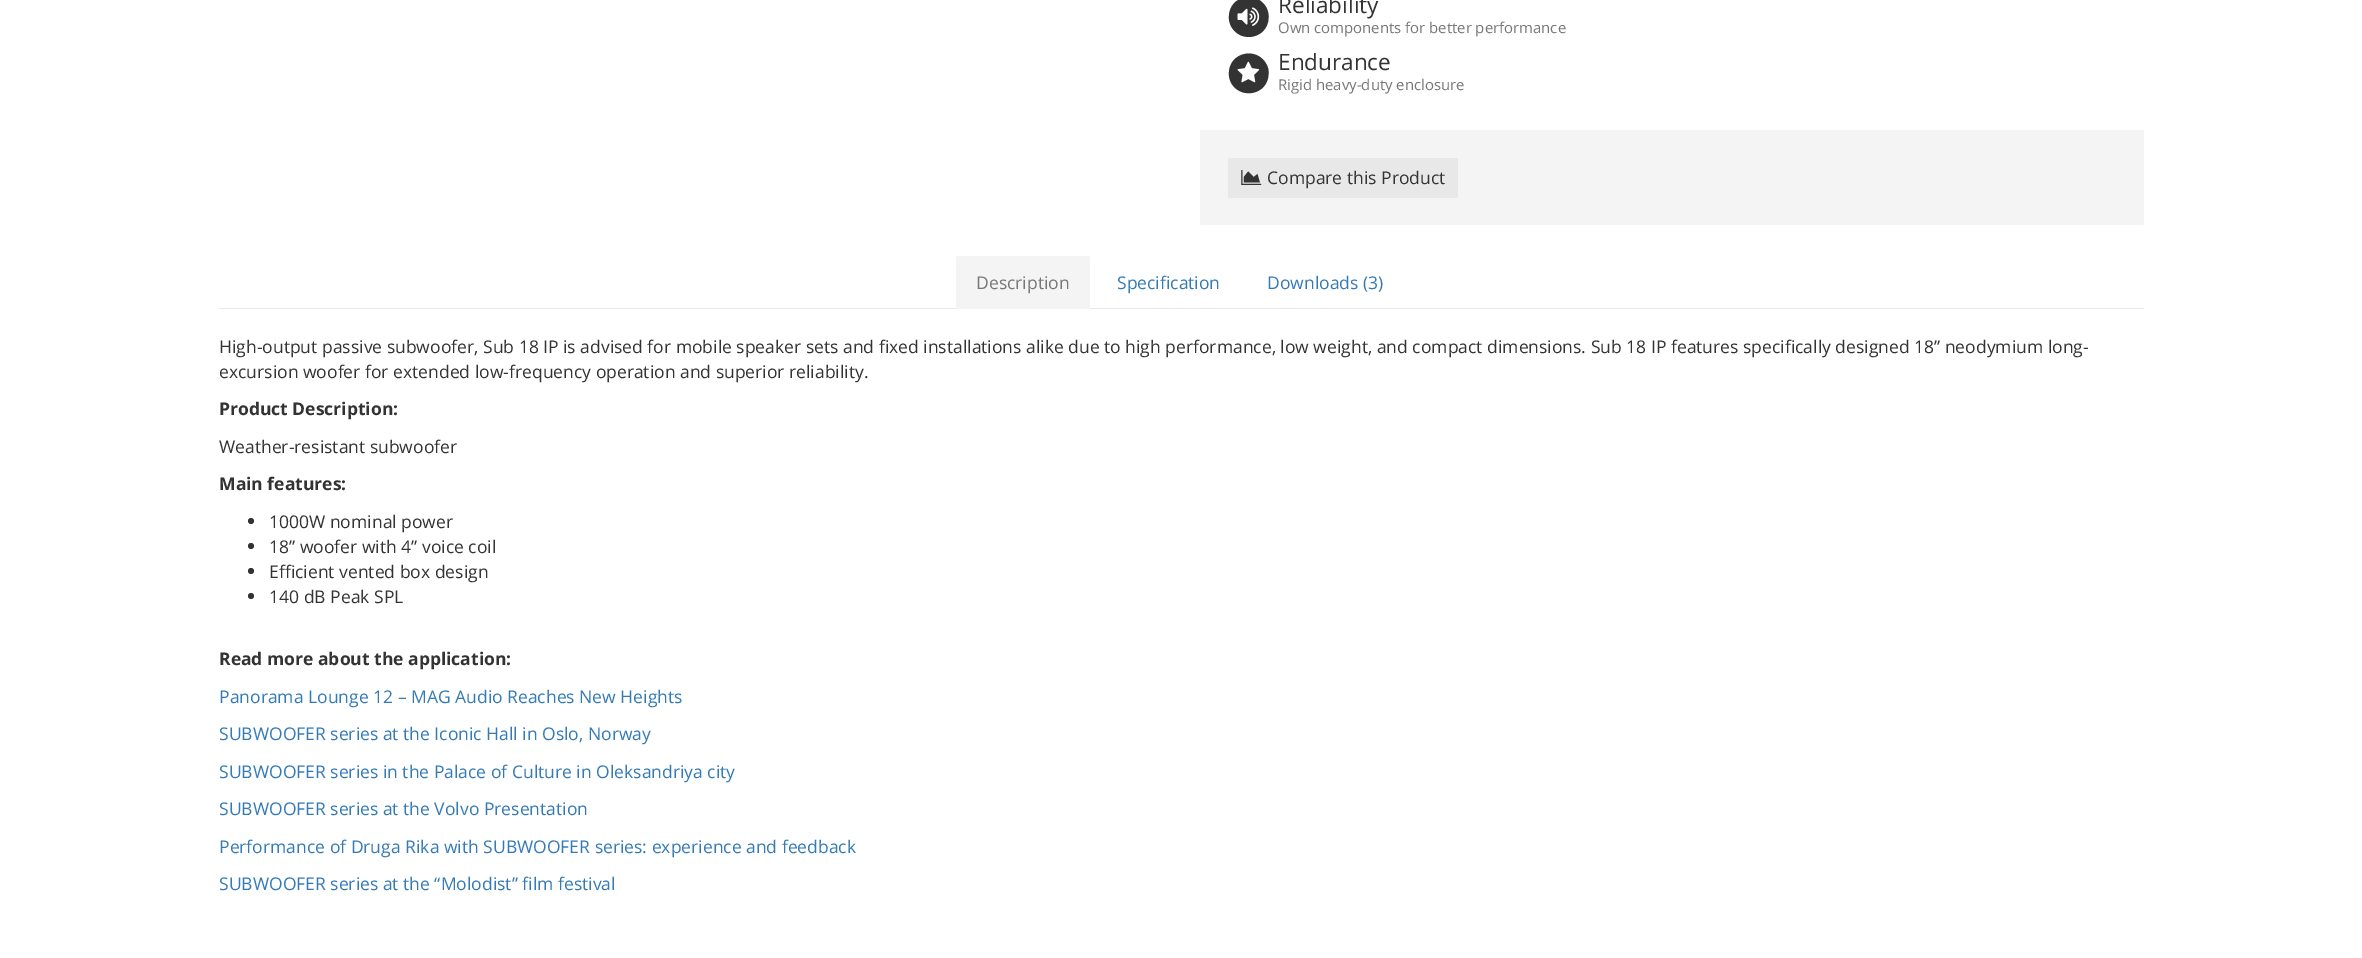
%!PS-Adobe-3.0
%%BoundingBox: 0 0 2362 958
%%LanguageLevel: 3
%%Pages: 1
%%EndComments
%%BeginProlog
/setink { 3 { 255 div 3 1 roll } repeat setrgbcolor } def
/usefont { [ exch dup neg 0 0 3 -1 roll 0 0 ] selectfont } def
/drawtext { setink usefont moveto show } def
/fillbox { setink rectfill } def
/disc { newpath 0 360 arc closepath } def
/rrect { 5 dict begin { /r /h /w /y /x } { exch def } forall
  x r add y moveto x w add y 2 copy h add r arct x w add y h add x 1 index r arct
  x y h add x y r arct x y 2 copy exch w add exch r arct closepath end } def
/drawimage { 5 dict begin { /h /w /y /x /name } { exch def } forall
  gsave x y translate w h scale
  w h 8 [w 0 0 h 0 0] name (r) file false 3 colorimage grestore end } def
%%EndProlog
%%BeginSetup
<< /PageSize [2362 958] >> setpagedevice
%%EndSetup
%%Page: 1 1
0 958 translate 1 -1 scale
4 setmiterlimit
0 0 2362 958 255 255 255 fillbox
51 51 51 setink
1266 7 moveto 1268 10.5 1269 14.5 1268.5 18.5 curveto 1267.5 38 1241.5 44 1231.5 27 curveto 1229.5 23.5 1228.5 19.5 1229 15.5 curveto 1230 -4 1256 -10 1266 7 curveto closepath fill
(assets/img1.rgb) 1237 7 23 19 drawimage
(Reliability) 1278 13 /OpenSans-Regular 22.5 51 51 51 drawtext
(Own components for better performance) 1278 33 /OpenSans-Regular 14.9 119 119 119 drawtext
51 51 51 setink
1266 63.5 moveto 1268 66.5 1269 70.5 1268.5 74.5 curveto 1267.5 94.5 1241.5 100 1231.5 83.5 curveto 1229.5 80 1228.5 76 1229 72 curveto 1230 52.5 1256 46.5 1266 63.5 curveto closepath fill
(assets/img2.rgb) 1237 61 23 22 drawimage
(Endurance) 1278 70 /OpenSans-Regular 22.5 51 51 51 drawtext
(Rigid heavy-duty enclosure) 1278 90 /OpenSans-Regular 14.9 119 119 119 drawtext
244 244 244 setink
1200 130 944 95 2.5 rrect fill
232 232 232 setink
1228 158 moveto 1455.5 158 lineto 1457 158 1458 159 1458 160.5 curveto 1458 195.5 lineto 1458 197 1457 198 1455.5 198 curveto 1228 198 lineto closepath fill
(assets/img3.rgb) 1241 170 21 15 drawimage
(Compare this Product) 1267 184 /OpenSans-Regular 17.5 51 51 51 drawtext
219 308 1925 1 232 232 232 fillbox
244 244 244 setink
958.5 256 moveto 1087.5 256 lineto 1089 256 1090 257 1090 258.5 curveto 1090 309 lineto 956 309 lineto 956 258.5 lineto 956 257 957 256 958.5 256 curveto closepath fill
(Description) 976 289 /OpenSans-Regular 17.5 119 119 119 drawtext
(Specification) 1117 289 /OpenSans-Regular 17.5 51 122 183 drawtext
(Downloads \(3\)) 1267 289 /OpenSans-Regular 17.5 51 122 183 drawtext
(High-output passive subwoofer, Sub 18 IP is advised for mobile speaker sets and fixed installations alike due to high performance, low weight, and compact dimensions. Sub 18 IP features specifically designed 18” neodymium long-) 219 353 /OpenSans-Regular 17.5 51 51 51 drawtext
(excursion woofer for extended low-frequency operation and superior reliability.) 219 378 /OpenSans-Regular 17.5 51 51 51 drawtext
(Product Description:) 219 415 /OpenSans-Bold 17.5 51 51 51 drawtext
(Weather-resistant subwoofer) 219 453 /OpenSans-Regular 17.5 51 51 51 drawtext
(Main features:) 219 490 /OpenSans-Bold 17.5 51 51 51 drawtext
251 521 3 disc fill
(1000W nominal power) 269 528 /OpenSans-Regular 17.5 51 51 51 drawtext
251 546 3 disc fill
(18” woofer with 4” voice coil) 269 553 /OpenSans-Regular 17.5 51 51 51 drawtext
251 571 3 disc fill
(Efficient vented box design) 269 578 /OpenSans-Regular 17.5 51 51 51 drawtext
251 596 3 disc fill
(140 dB Peak SPL) 269 603 /OpenSans-Regular 17.5 51 51 51 drawtext
(Read more about the application:) 219 665 /OpenSans-Bold 17.5 51 51 51 drawtext
(Panorama Lounge 12 – MAG Audio Reaches New Heights) 219 703 /OpenSans-Regular 17.5 51 122 183 drawtext
(SUBWOOFER series at the Iconic Hall in Oslo, Norway) 219 740 /OpenSans-Regular 17.5 51 122 183 drawtext
(SUBWOOFER series in the Palace of Culture in Oleksandriya city) 219 778 /OpenSans-Regular 17.5 51 122 183 drawtext
(SUBWOOFER series at the Volvo Presentation) 219 815 /OpenSans-Regular 17.5 51 122 183 drawtext
(Performance of Druga Rika with SUBWOOFER series: experience and feedback) 219 853 /OpenSans-Regular 17.5 51 122 183 drawtext
(SUBWOOFER series at the “Molodist” film festival) 219 890 /OpenSans-Regular 17.5 51 122 183 drawtext
showpage
%%EOF
